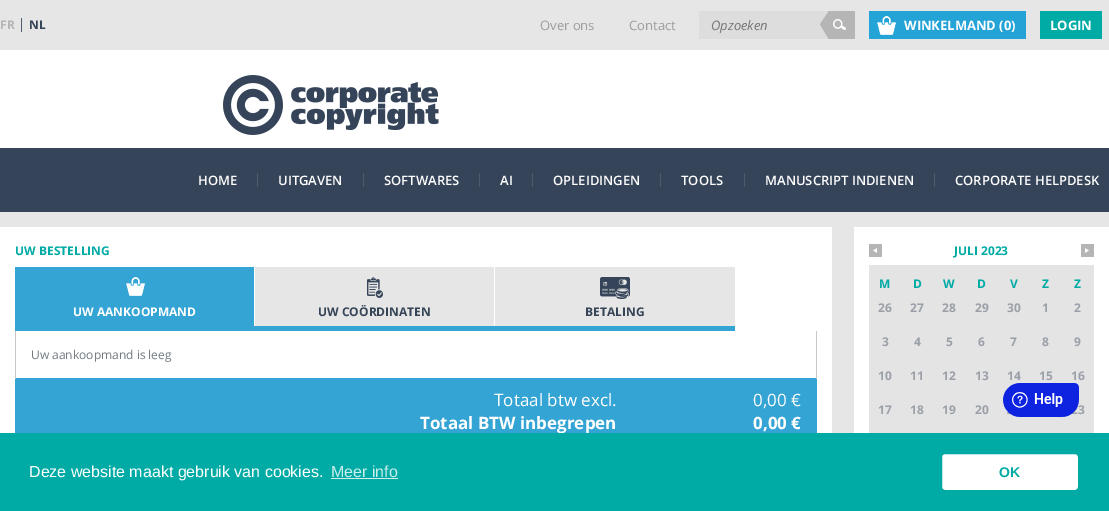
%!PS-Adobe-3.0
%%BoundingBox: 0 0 1109 511
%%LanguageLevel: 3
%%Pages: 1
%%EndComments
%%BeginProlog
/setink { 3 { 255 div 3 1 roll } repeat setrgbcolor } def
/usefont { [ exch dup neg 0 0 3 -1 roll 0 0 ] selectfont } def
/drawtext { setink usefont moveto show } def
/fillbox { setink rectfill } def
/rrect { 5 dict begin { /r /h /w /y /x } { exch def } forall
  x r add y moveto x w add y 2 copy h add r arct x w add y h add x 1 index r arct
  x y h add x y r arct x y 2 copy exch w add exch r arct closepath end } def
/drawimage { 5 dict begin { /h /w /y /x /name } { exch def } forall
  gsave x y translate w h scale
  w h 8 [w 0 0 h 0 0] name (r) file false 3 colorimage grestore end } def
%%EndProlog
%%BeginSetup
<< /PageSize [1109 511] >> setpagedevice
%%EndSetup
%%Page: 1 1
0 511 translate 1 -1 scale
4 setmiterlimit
0 0 1109 511 230 230 230 fillbox
(FR) 0 29 /OpenSans-Bold 12 181 181 181 drawtext
21 18 1 14 78 91 108 fillbox
(NL) 29 29 /OpenSans-Bold 12 54 68 87 drawtext
(Over ons) 540 30 /OpenSans-Regular 13 156 156 156 drawtext
(Contact) 629 30 /OpenSans-Regular 13 156 156 156 drawtext
699 11 156 28 221 221 221 fillbox
(Opzoeken) 711 30 /OpenSans-Italic 13 117 117 117 drawtext
(assets/img1.rgb) 820 11 35 28 drawimage
869 11 157 28 36 163 215 fillbox
(assets/img2.rgb) 877 16 19 19 drawimage
(WINKELMAND \(0\)) 904 30 /OpenSans-Bold 13 255 255 255 drawtext
1040 11 62 28 0 171 165 fillbox
(LOGIN) 1050 30 /OpenSans-Bold 13 255 255 255 drawtext
0 50 1109 98 255 255 255 fillbox
(assets/img3.rgb) 223 75 216 60 drawimage
0 148 1109 64 53 68 88 fillbox
(HOME) 198 185 /OpenSans-SemiBold 13 255 255 255 drawtext
257 173 1 14 78 91 108 fillbox
(UITGAVEN) 278 185 /OpenSans-SemiBold 13 255 255 255 drawtext
363 173 1 14 78 91 108 fillbox
(SOFTWARES) 384 185 /OpenSans-SemiBold 13 255 255 255 drawtext
479 173 1 14 78 91 108 fillbox
(AI) 500 185 /OpenSans-SemiBold 13 255 255 255 drawtext
532 173 1 14 78 91 108 fillbox
(OPLEIDINGEN) 553 185 /OpenSans-SemiBold 13 255 255 255 drawtext
660 173 1 14 78 91 108 fillbox
(TOOLS) 681 185 /OpenSans-SemiBold 13 255 255 255 drawtext
744 173 1 14 78 91 108 fillbox
(MANUSCRIPT INDIENEN) 765 185 /OpenSans-SemiBold 13 255 255 255 drawtext
934 173 1 14 78 91 108 fillbox
(CORPORATE HELPDESK) 955 185 /OpenSans-SemiBold 13 255 255 255 drawtext
0 227 832 206 255 255 255 fillbox
(UW BESTELLING) 15 255 /OpenSans-Bold 12 0 171 165 drawtext
15 267 240 64 52 164 213 fillbox
(assets/img4.rgb) 126 277 19 19 drawimage
254 267 1 59 255 255 255 fillbox
(UW AANKOOPMAND) 73 316 /OpenSans-Bold 12 255 255 255 drawtext
255 267 239 59 230 230 230 fillbox
(assets/img5.rgb) 367 277 16 21 drawimage
255 326 480 5 52 164 213 fillbox
(UW COÖRDINATEN) 318 316 /OpenSans-Bold 12 54 68 87 drawtext
495 267 240 59 230 230 230 fillbox
(assets/img6.rgb) 600 277 30 22 drawimage
(BETALING) 585 316 /OpenSans-Bold 12 54 68 87 drawtext
816 378 1 55 52 164 213 fillbox
816 331 1 48 199 199 199 fillbox
15 378 1 55 52 164 213 fillbox
15 331 1 48 199 199 199 fillbox
(Uw aankoopmand is leeg) 31 359 /OpenSans-Regular 12 114 123 131 drawtext
16 378 800 55 52 164 213 fillbox
(Totaal btw excl.) 494 406 /OpenSans-Regular 17 255 255 255 drawtext
(0,00 €) 753 406 /OpenSans-Regular 17 255 255 255 drawtext
(Totaal BTW inbegrepen) 420 429 /OpenSans-Bold 17 255 255 255 drawtext
(0,00 €) 753 429 /OpenSans-Bold 17 255 255 255 drawtext
854 227 255 206 255 255 255 fillbox
869 265 225 168 228 228 228 fillbox
869 244 13 13 181 181 181 fillbox
(assets/img7.rgb) 873 248 4 5 drawimage
(JULI 2023) 954 255 /OpenSans-Bold 12 0 171 165 drawtext
1081 244 13 13 181 181 181 fillbox
(assets/img8.rgb) 1085 248 4 5 drawimage
(M) 879 288 /OpenSans-Bold 12 0 171 165 drawtext
(D) 913 288 /OpenSans-Bold 12 0 171 165 drawtext
(W) 943 288 /OpenSans-Bold 12 0 171 165 drawtext
(D) 977 288 /OpenSans-Bold 12 0 171 165 drawtext
(V) 1010 288 /OpenSans-Bold 12 0 171 165 drawtext
(Z) 1042 288 /OpenSans-Bold 12 0 171 165 drawtext
(Z) 1074 288 /OpenSans-Bold 12 0 171 165 drawtext
(26) 878 312 /OpenSans-Bold 12 155 160 168 drawtext
(27) 910 312 /OpenSans-Bold 12 155 160 168 drawtext
(28) 942 312 /OpenSans-Bold 12 155 160 168 drawtext
(29) 975 312 /OpenSans-Bold 12 155 160 168 drawtext
(30) 1007 312 /OpenSans-Bold 12 155 160 168 drawtext
(1) 1042 312 /OpenSans-Bold 12 155 160 168 drawtext
(2) 1074 312 /OpenSans-Bold 12 155 160 168 drawtext
(3) 882 346 /OpenSans-Bold 12 155 160 168 drawtext
(4) 914 346 /OpenSans-Bold 12 155 160 168 drawtext
(5) 946 346 /OpenSans-Bold 12 155 160 168 drawtext
(6) 978 346 /OpenSans-Bold 12 155 160 168 drawtext
(7) 1010 346 /OpenSans-Bold 12 155 160 168 drawtext
(8) 1042 346 /OpenSans-Bold 12 155 160 168 drawtext
(9) 1074 346 /OpenSans-Bold 12 155 160 168 drawtext
(10) 878 380 /OpenSans-Bold 12 155 160 168 drawtext
(11) 910 380 /OpenSans-Bold 12 155 160 168 drawtext
(12) 942 380 /OpenSans-Bold 12 155 160 168 drawtext
(13) 975 380 /OpenSans-Bold 12 155 160 168 drawtext
(14) 1007 380 /OpenSans-Bold 12 155 160 168 drawtext
(15) 1039 380 /OpenSans-Bold 12 155 160 168 drawtext
(16) 1071 380 /OpenSans-Bold 12 155 160 168 drawtext
(17) 878 414 /OpenSans-Bold 12 155 160 168 drawtext
(18) 910 414 /OpenSans-Bold 12 155 160 168 drawtext
(19) 942 414 /OpenSans-Bold 12 155 160 168 drawtext
(20) 975 414 /OpenSans-Bold 12 155 160 168 drawtext
(3) 1078 414 /OpenSans-Bold 12 155 160 168 drawtext
(assets/img9.rgb) 1003 383 77 34 drawimage
0 433 1109 78 0 171 165 fillbox
(Deze website maakt gebruik van cookies.) 29 477 /LiberationSans-Regular 16 255 255 255 drawtext
(Meer info) 331 477 /LiberationSans-Regular 16 204 238 237 drawtext
331 478 67 1 204 238 237 fillbox
255 255 255 setink
941 453 138 38 4 rrect gsave fill grestore
0 171 165 setink
2 setlinewidth
stroke
(OK) 999 477 /LiberationSans-Bold 14 0 171 165 drawtext
showpage
%%EOF
